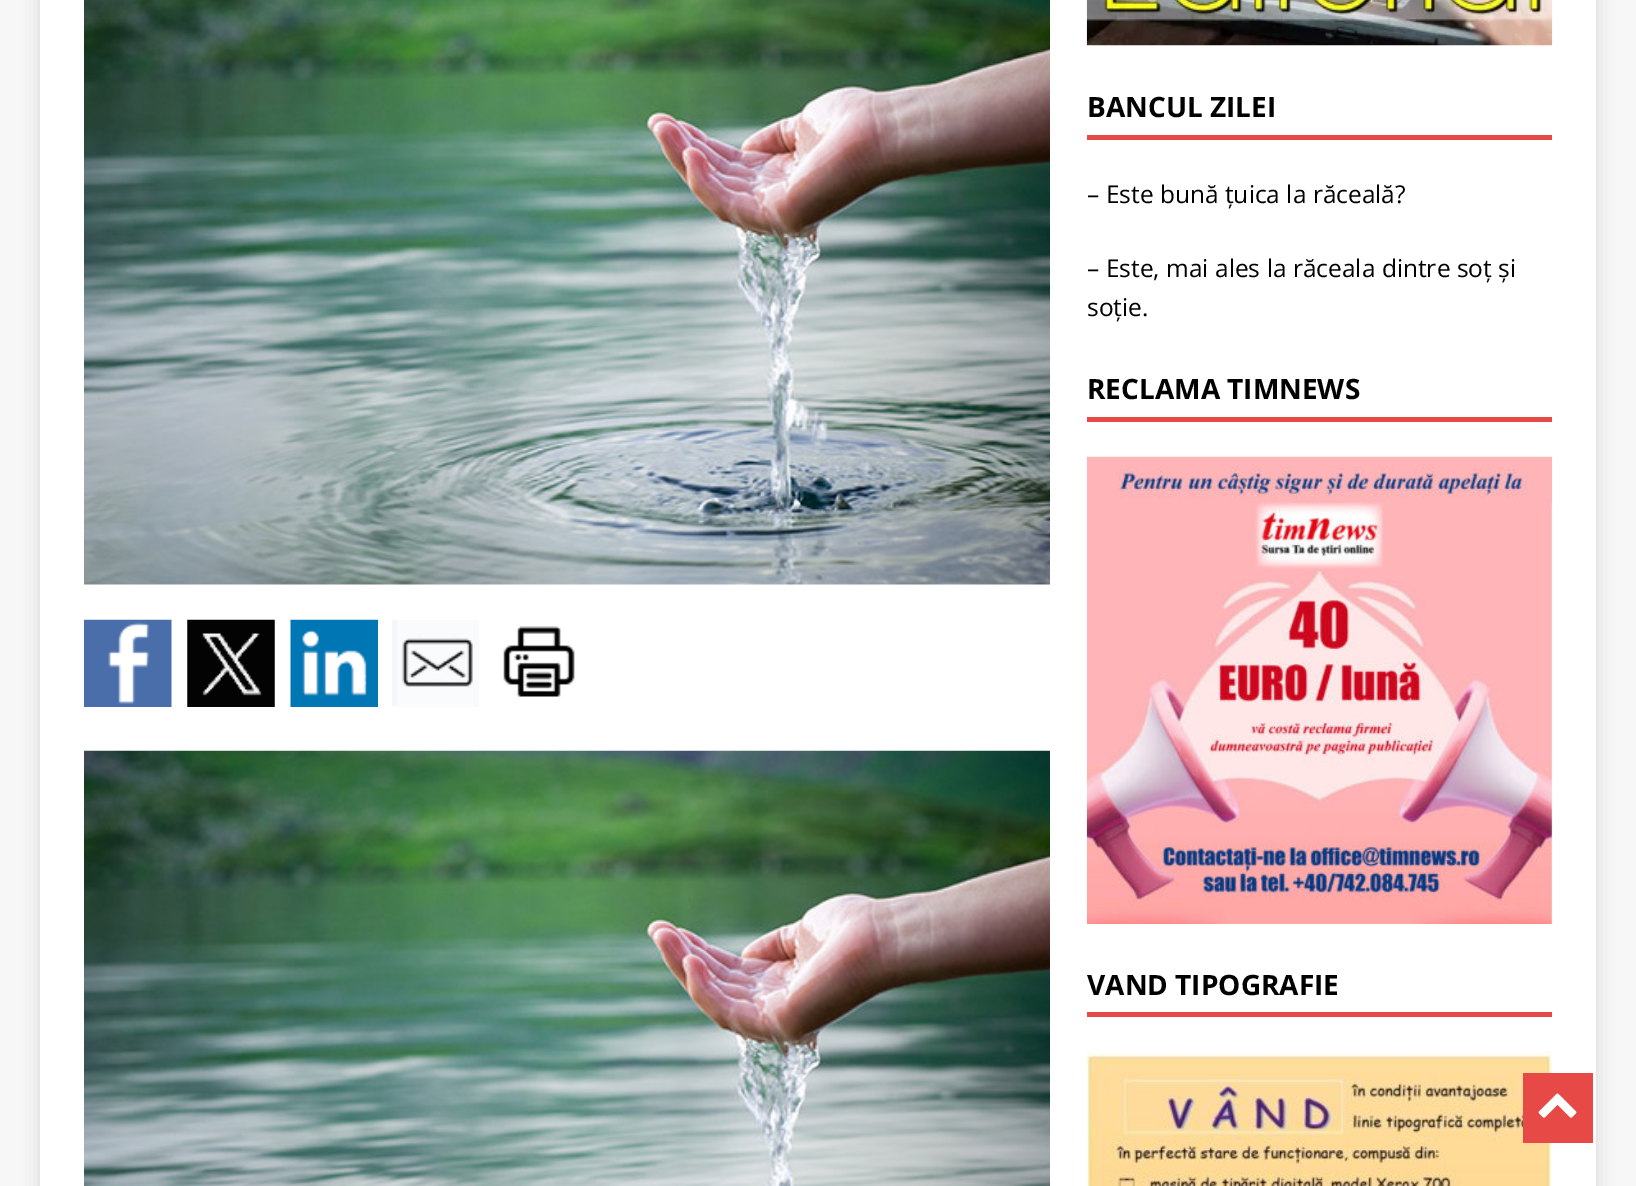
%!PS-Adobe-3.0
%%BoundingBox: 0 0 1636 1186
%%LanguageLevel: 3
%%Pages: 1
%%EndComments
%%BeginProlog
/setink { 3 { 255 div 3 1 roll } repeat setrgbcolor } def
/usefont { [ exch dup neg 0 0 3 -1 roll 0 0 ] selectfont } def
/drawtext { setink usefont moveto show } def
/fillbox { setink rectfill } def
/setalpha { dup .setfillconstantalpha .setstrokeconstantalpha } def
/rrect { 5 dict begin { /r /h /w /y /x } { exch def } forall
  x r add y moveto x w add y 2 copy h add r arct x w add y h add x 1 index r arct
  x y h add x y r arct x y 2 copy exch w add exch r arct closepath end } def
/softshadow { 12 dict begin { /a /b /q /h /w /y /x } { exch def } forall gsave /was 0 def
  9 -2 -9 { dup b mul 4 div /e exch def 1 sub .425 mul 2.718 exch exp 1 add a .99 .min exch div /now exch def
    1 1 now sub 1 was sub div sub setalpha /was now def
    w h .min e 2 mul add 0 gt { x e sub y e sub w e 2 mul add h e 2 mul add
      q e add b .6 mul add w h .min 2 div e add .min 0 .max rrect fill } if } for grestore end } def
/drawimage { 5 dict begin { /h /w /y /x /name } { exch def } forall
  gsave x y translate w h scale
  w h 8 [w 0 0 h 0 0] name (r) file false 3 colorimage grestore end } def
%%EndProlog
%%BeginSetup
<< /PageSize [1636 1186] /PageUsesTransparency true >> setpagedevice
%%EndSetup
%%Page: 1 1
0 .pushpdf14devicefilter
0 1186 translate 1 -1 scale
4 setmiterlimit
0 0 1636 1186 247 247 247 fillbox
50 50 50 setink
40 -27 1556 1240 0 9 0.17 softshadow
40 0 1556 1186 255 255 255 fillbox
(assets/img1.rgb) 84 0 966 585 drawimage
(assets/img2.rgb) 84 619 88 88 drawimage
(assets/img3.rgb) 187 619 88 88 drawimage
(assets/img4.rgb) 290 619 88 88 drawimage
(assets/img5.rgb) 392 620 87 87 drawimage
(assets/img6.rgb) 503 626 72 71 drawimage
(assets/img7.rgb) 84 750 966 436 drawimage
(assets/img8.rgb) 1086 0 467 46 drawimage
1087 135 465 5 230 73 70 fillbox
(BANCUL ZILEI) 1087 117 /OpenSans-Bold 28 0 0 0 drawtext
(– Este bună țuica la răceală?) 1087 203 /OpenSans-Regular 24.5 0 0 0 drawtext
(– Este, mai ales la răceala dintre soț și) 1087 277 /OpenSans-Regular 24.5 0 0 0 drawtext
(soție.) 1087 316 /OpenSans-Regular 24.5 0 0 0 drawtext
1087 417 465 5 230 73 70 fillbox
(RECLAMA TIMNEWS) 1087 399 /OpenSans-Bold 28 0 0 0 drawtext
(assets/img9.rgb) 1086 456 467 468 drawimage
1087 1012 465 5 230 73 70 fillbox
(VAND TIPOGRAFIE) 1087 995 /OpenSans-Bold 28 0 0 0 drawtext
(assets/img10.rgb) 1087 1051 465 135 drawimage
1523 1073 70 70 230 73 70 fillbox
(assets/img11.rgb) 1538 1093 39 25 drawimage
.poppdf14devicefilter showpage
%%EOF
